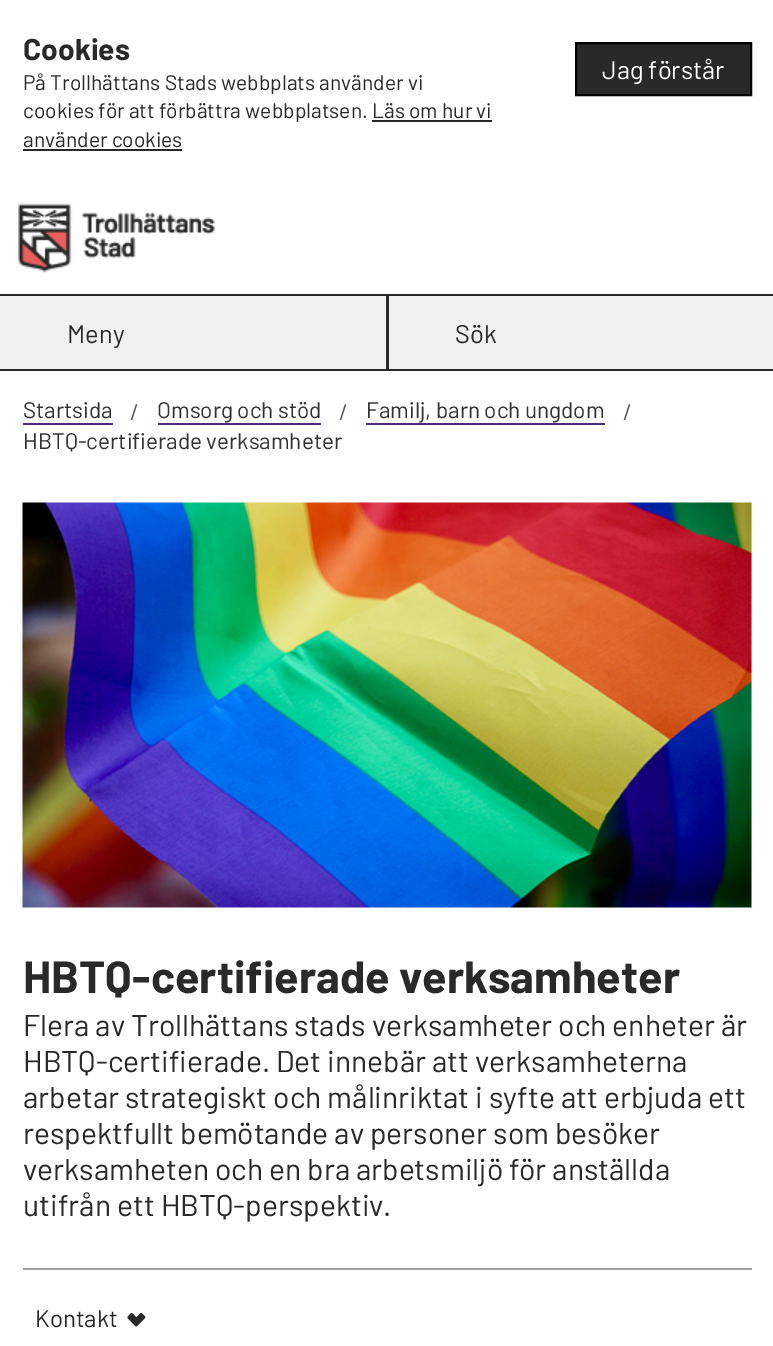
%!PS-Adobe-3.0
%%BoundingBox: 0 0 773 1346
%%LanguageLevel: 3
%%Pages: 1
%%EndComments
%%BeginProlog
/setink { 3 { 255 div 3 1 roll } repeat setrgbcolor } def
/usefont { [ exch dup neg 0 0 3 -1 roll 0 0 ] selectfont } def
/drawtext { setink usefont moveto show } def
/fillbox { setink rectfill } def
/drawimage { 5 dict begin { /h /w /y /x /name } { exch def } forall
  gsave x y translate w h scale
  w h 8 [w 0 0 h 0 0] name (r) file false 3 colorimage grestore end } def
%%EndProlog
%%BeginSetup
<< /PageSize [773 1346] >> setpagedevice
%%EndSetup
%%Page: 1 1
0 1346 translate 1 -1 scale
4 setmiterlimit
0 0 773 1346 255 255 255 fillbox
(Cookies) 23 60 /Barlow-Bold 30 41 41 41 drawtext
(På Trollhättans Stads webbplats använder vi) 23 90 /Barlow-Regular 21 41 41 41 drawtext
(cookies för att förbättra webbplatsen. Läs om hur vi) 23 118 /Barlow-Regular 21 41 41 41 drawtext
(använder cookies) 23 147 /Barlow-Regular 21 41 41 41 drawtext
372 120 120 2 41 41 41 fillbox
23 149 159 2 41 41 41 fillbox
576 43 moveto 751 43 lineto 751 95 lineto 576 95 lineto closepath gsave fill grestore
0 0 0 setink
2 setlinewidth
stroke
(Jag förstår) 602 79 /Barlow-Regular 25.5 255 255 255 drawtext
(assets/img1.rgb) 18 202 197 71 drawimage
0 294 773 2 41 41 41 fillbox
386 296 1 75 41 41 41 fillbox
0 369 773 2 41 41 41 fillbox
0 296 386 73 240 240 240 fillbox
(Meny) 67 343 /Barlow-Regular 25.5 41 41 41 drawtext
387 296 2 75 41 41 41 fillbox
389 296 384 73 240 240 240 fillbox
(Sök) 455 343 /Barlow-Regular 25.5 41 41 41 drawtext
(Startsida) 23 418 /Barlow-Regular 22.5 51 51 51 drawtext
23 423 90 2 75 45 120 fillbox
(/) 130 420 /Barlow-Regular 22.5 81 81 81 drawtext
(Omsorg och stöd) 157 418 /Barlow-Regular 22.5 51 51 51 drawtext
158 423 163 2 75 45 120 fillbox
(/) 339 420 /Barlow-Regular 22.5 81 81 81 drawtext
(Familj, barn och ungdom) 366 418 /Barlow-Regular 22.5 51 51 51 drawtext
366 423 239 2 75 45 120 fillbox
(/) 623 420 /Barlow-Regular 22.5 81 81 81 drawtext
(HBTQ-certifierade verksamheter) 23 449 /Barlow-Regular 22.5 51 51 51 drawtext
(assets/img2.rgb) 22 502 730 406 drawimage
(HBTQ-certifierade verksamheter) 23 993 /Barlow-Bold 45 41 41 41 drawtext
(Flera av Trollhättans stads verksamheter och enheter är) 23 1036 /Barlow-Regular 30 41 41 41 drawtext
(HBTQ-certifierade. Det innebär att verksamheterna) 23 1072 /Barlow-Regular 30 41 41 41 drawtext
(arbetar strategiskt och målinriktat i syfte att erbjuda ett) 23 1108 /Barlow-Regular 30 41 41 41 drawtext
(respektfullt bemötande av personer som besöker) 23 1144 /Barlow-Regular 30 41 41 41 drawtext
(verksamheten och en bra arbetsmiljö för anställda) 23 1180 /Barlow-Regular 30 41 41 41 drawtext
(utifrån ett HBTQ-perspektiv.) 23 1216 /Barlow-Regular 30 41 41 41 drawtext
23 1268 729 2 160 160 160 fillbox
(Kontakt) 35 1327 /Barlow-Regular 24 41 41 41 drawtext
(assets/img3.rgb) 127 1313 19 14 drawimage
showpage
%%EOF
